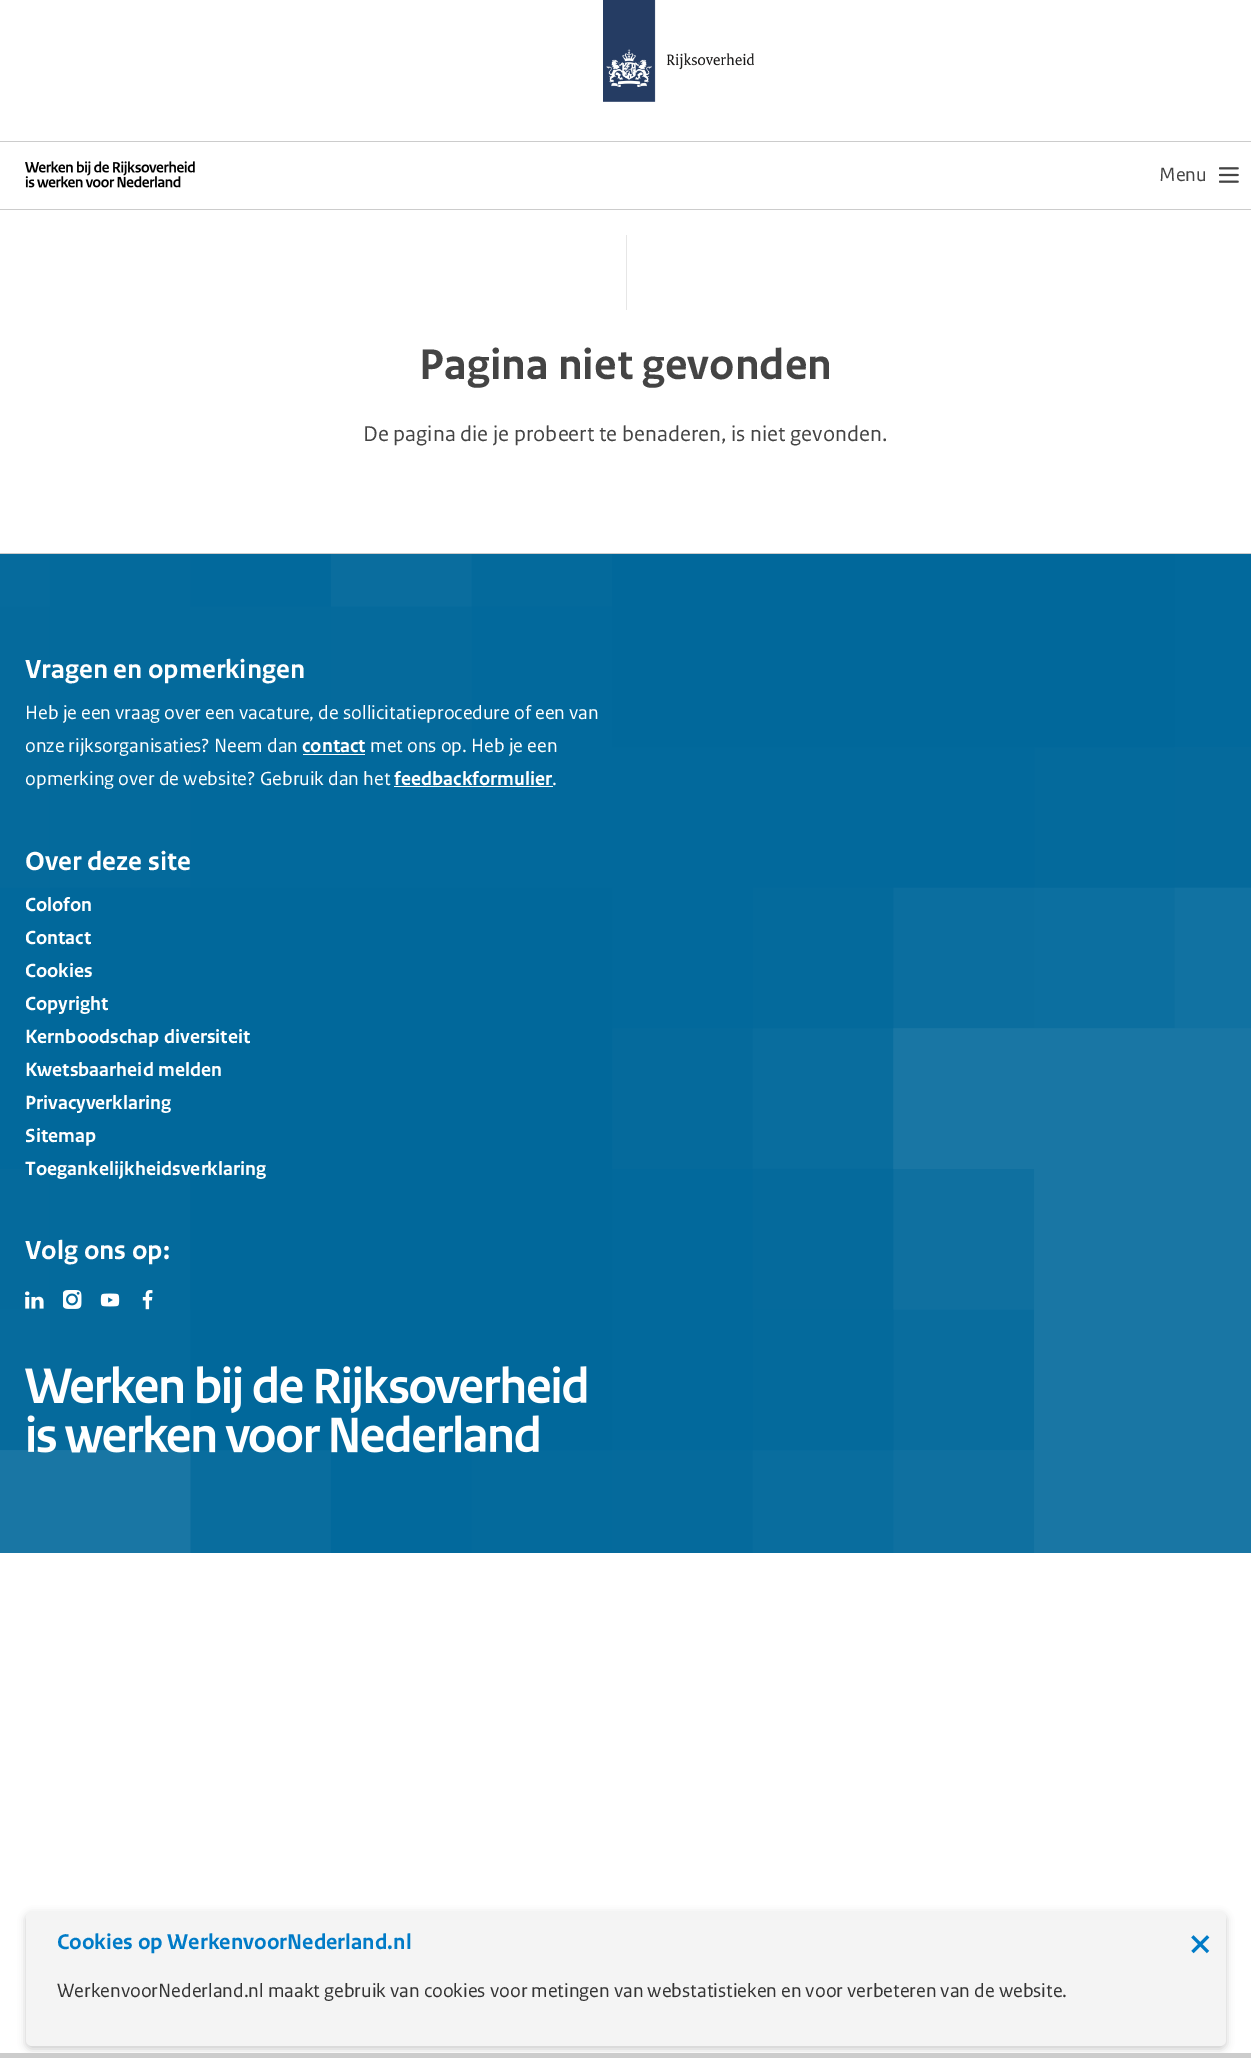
%!PS-Adobe-3.0
%%BoundingBox: 0 0 1251 2058
%%LanguageLevel: 3
%%Pages: 1
%%EndComments
%%BeginProlog
/setink { 3 { 255 div 3 1 roll } repeat setrgbcolor } def
/usefont { [ exch dup neg 0 0 3 -1 roll 0 0 ] selectfont } def
/drawtext { setink usefont moveto show } def
/fillbox { setink rectfill } def
/setalpha { dup .setfillconstantalpha .setstrokeconstantalpha } def
/rrect { 5 dict begin { /r /h /w /y /x } { exch def } forall
  x r add y moveto x w add y 2 copy h add r arct x w add y h add x 1 index r arct
  x y h add x y r arct x y 2 copy exch w add exch r arct closepath end } def
/softshadow { 12 dict begin { /a /b /q /h /w /y /x } { exch def } forall gsave /was 0 def
  9 -2 -9 { dup b mul 4 div /e exch def 1 sub .425 mul 2.718 exch exp 1 add a .99 .min exch div /now exch def
    1 1 now sub 1 was sub div sub setalpha /was now def
    w h .min e 2 mul add 0 gt { x e sub y e sub w e 2 mul add h e 2 mul add
      q e add b .6 mul add w h .min 2 div e add .min 0 .max rrect fill } if } for grestore end } def
/drawimage { 5 dict begin { /h /w /y /x /name } { exch def } forall
  gsave x y translate w h scale
  w h 8 [w 0 0 h 0 0] name (r) file false 3 colorimage grestore end } def
%%EndProlog
%%BeginSetup
<< /PageSize [1251 2058] /PageUsesTransparency true >> setpagedevice
%%EndSetup
%%Page: 1 1
0 .pushpdf14devicefilter
0 2058 translate 1 -1 scale
4 setmiterlimit
0 0 1251 2058 255 255 255 fillbox
0 209 1251 1 204 204 204 fillbox
(assets/img1.rgb) 25 161 170 27 drawimage
(Menu) 1159 181 /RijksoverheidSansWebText-Regular 20 68 68 68 drawtext
(assets/img2.rgb) 1219 167 20 16 drawimage
0 141 1251 1 204 204 204 fillbox
(assets/img3.rgb) 603 0 151 102 drawimage
0 0 0 setink
26 1914 1200 135 6 4 0.2 softshadow
244 244 244 setink
26 1911 1200 135 6 rrect fill
(Cookies op WerkenvoorNederland.nl) 57 1949 /RijksoverheidSansWebText-Bold 22.5 0 123 199 drawtext
(WerkenvoorNederland.nl maakt gebruik van cookies voor metingen van webstatistieken en voor verbeteren van de website.) 57 1997 /RijksoverheidSansWebText-Regular 20 51 51 51 drawtext
(×) 1187 1959 /RijksoverheidSansWebText-Regular 50 0 123 199 drawtext
626 235 1 75 230 230 230 fillbox
(Pagina niet gevonden) 419 379 /RijksoverheidSansWebText-Bold 45 68 68 68 drawtext
(De pagina die je probeert te benaderen, is niet gevonden.) 363 441 /RijksoverheidSansWebText-Regular 22.5 68 68 68 drawtext
0 554 1251 999 1 104 155 fillbox
0 553 1251 1 204 204 204 fillbox
(assets/img4.rgb) 0 554 1251 999 drawimage
(Vragen en opmerkingen) 25 678 /RijksoverheidSansWebText-Bold 27.5 255 255 255 drawtext
(Heb je een vraag over een vacature, de sollicitatieprocedure of een van) 25 719 /RijksoverheidSansWebText-Regular 20 255 255 255 drawtext
(onze rijksorganisaties? Neem dan) 25 752 /RijksoverheidSansWebText-Regular 20 255 255 255 drawtext
(contact) 302 752 /RijksoverheidSansWebText-Bold 20 255 255 255 drawtext
303 754 62 1 255 255 255 fillbox
(met ons op. Heb je een) 370 752 /RijksoverheidSansWebText-Regular 20 255 255 255 drawtext
(opmerking over de website? Gebruik dan het) 25 785 /RijksoverheidSansWebText-Regular 20 255 255 255 drawtext
(feedbackformulier) 394 785 /RijksoverheidSansWebText-Bold 20 255 255 255 drawtext
394 786 159 1 255 255 255 fillbox
(.) 552 785 /RijksoverheidSansWebText-Regular 20 255 255 255 drawtext
(Over deze site) 25 870 /RijksoverheidSansWebText-Bold 27.5 255 255 255 drawtext
(Colofon) 25 911 /RijksoverheidSansWebText-Bold 20 255 255 255 drawtext
(Contact) 25 944 /RijksoverheidSansWebText-Bold 20 255 255 255 drawtext
(Cookies) 25 977 /RijksoverheidSansWebText-Bold 20 255 255 255 drawtext
(Copyright) 25 1010 /RijksoverheidSansWebText-Bold 20 255 255 255 drawtext
(Kernboodschap diversiteit) 25 1043 /RijksoverheidSansWebText-Bold 20 255 255 255 drawtext
(Kwetsbaarheid melden) 25 1076 /RijksoverheidSansWebText-Bold 20 255 255 255 drawtext
(Privacyverklaring) 25 1109 /RijksoverheidSansWebText-Bold 20 255 255 255 drawtext
(Sitemap) 25 1142 /RijksoverheidSansWebText-Bold 20 255 255 255 drawtext
(Toegankelijkheidsverklaring) 25 1175 /RijksoverheidSansWebText-Bold 20 255 255 255 drawtext
(Volg ons op:) 25 1259 /RijksoverheidSansWebText-Bold 27.5 255 255 255 drawtext
(assets/img5.rgb) 25 1291 19 18 drawimage
(assets/img6.rgb) 63 1290 19 19 drawimage
(assets/img7.rgb) 100 1293 20 14 drawimage
(assets/img8.rgb) 142 1290 11 20 drawimage
(assets/img9.rgb) 25 1366 562 87 drawimage
0 2053 1251 5 204 204 204 fillbox
.poppdf14devicefilter showpage
%%EOF
